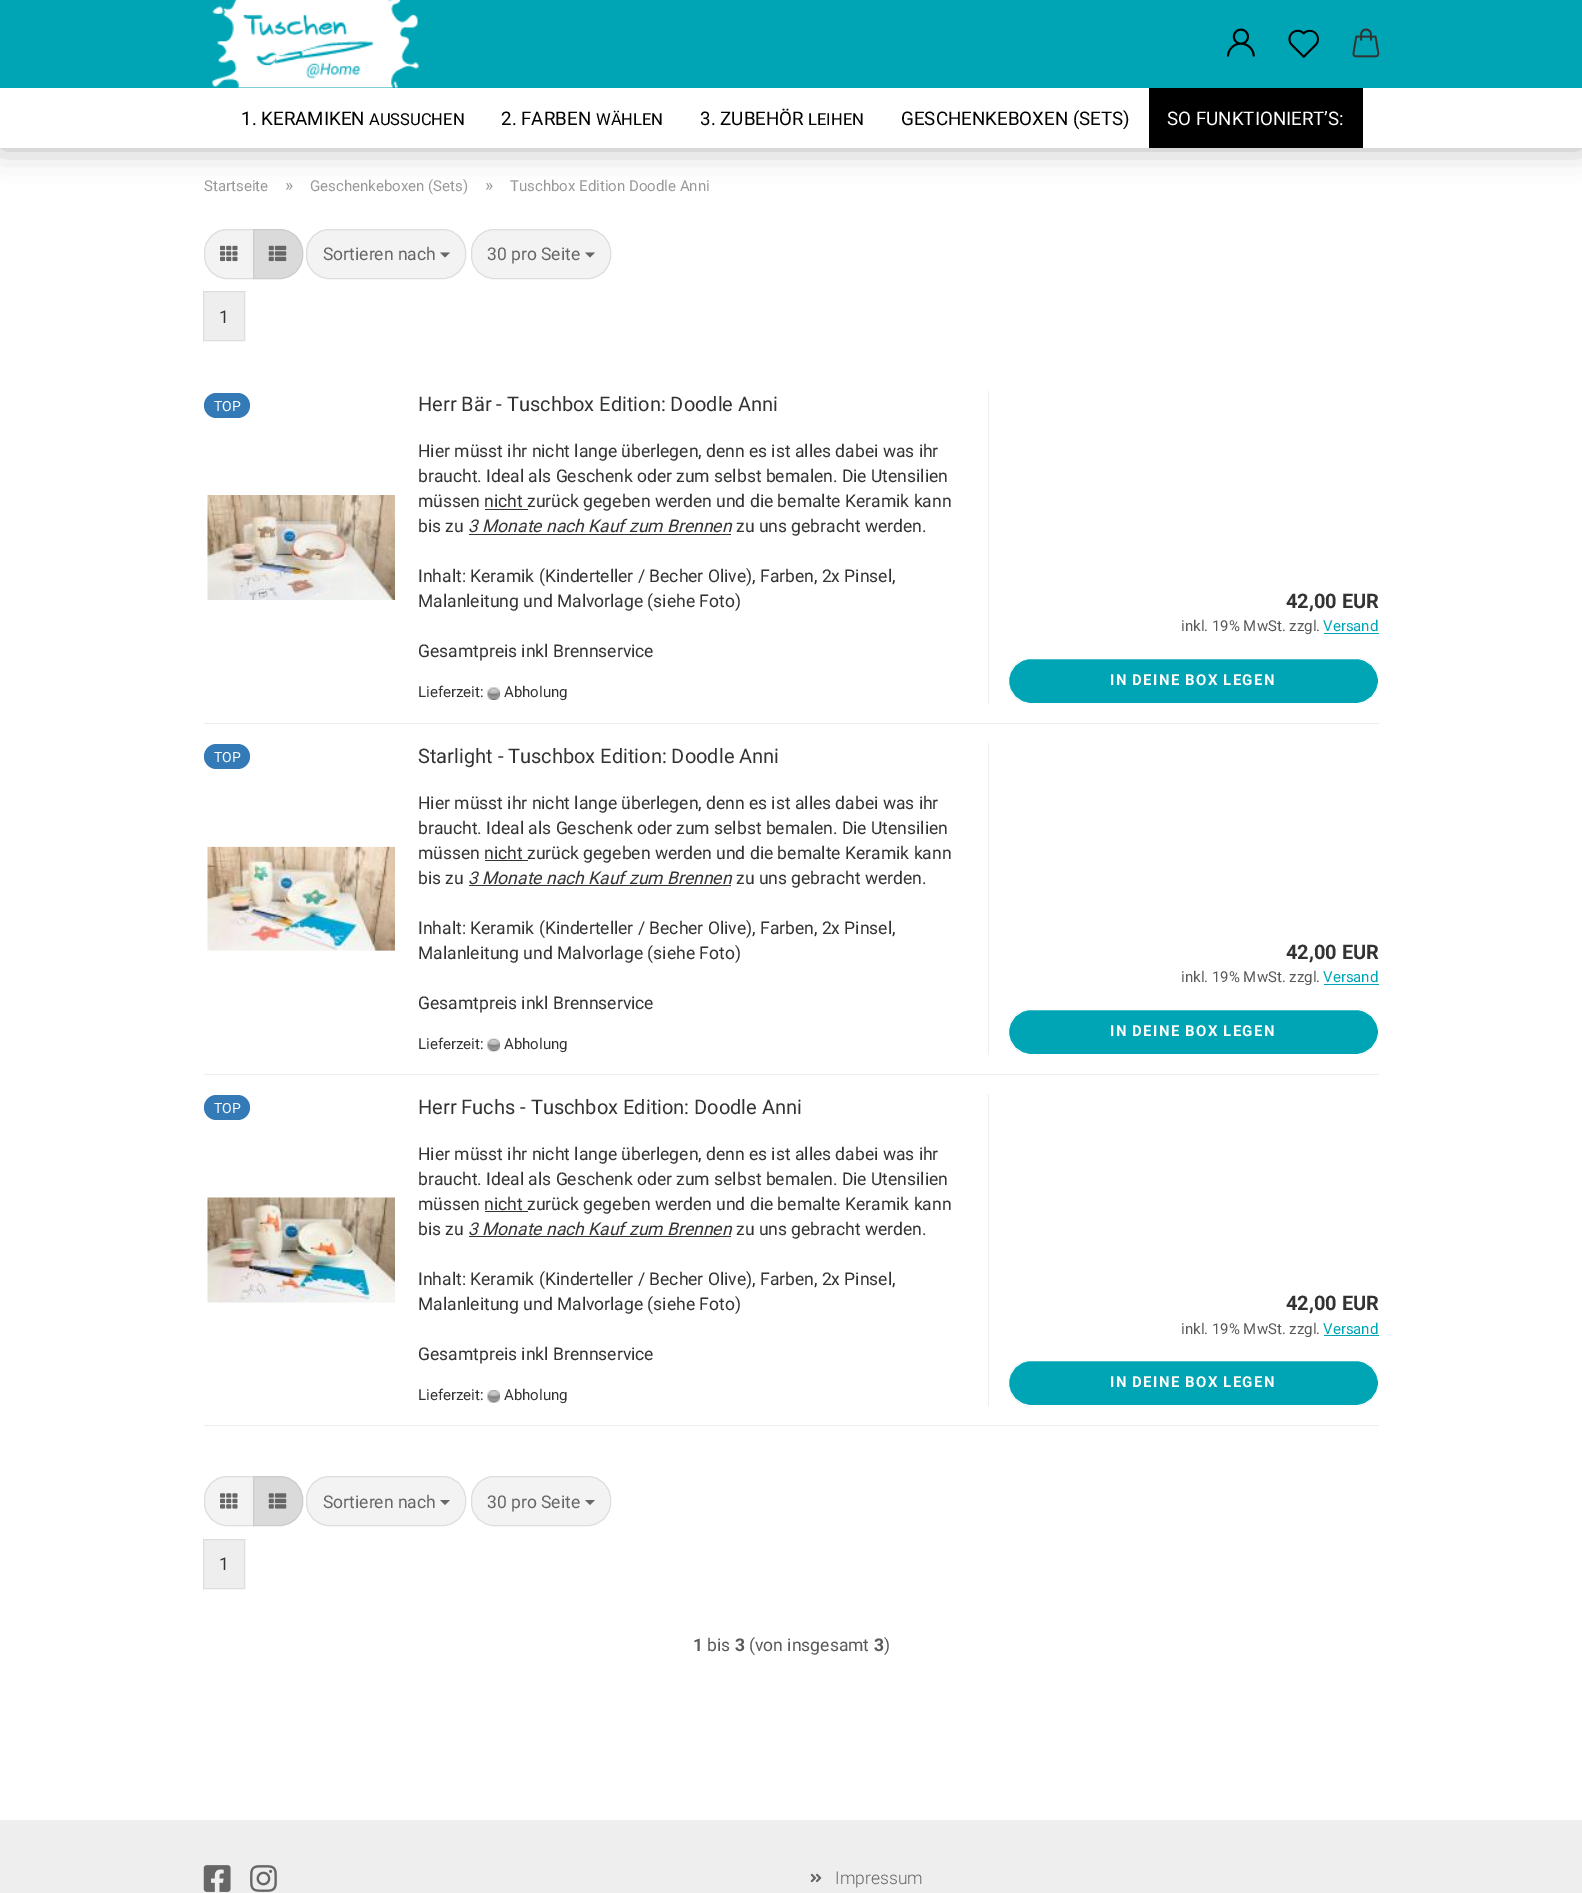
%!PS-Adobe-3.0
%%BoundingBox: 0 0 1582 1893
%%LanguageLevel: 3
%%Pages: 1
%%EndComments
%%BeginProlog
/setink { 3 { 255 div 3 1 roll } repeat setrgbcolor } def
/usefont { [ exch dup neg 0 0 3 -1 roll 0 0 ] selectfont } def
/drawtext { setink usefont moveto show } def
/fillbox { setink rectfill } def
/setalpha { dup .setfillconstantalpha .setstrokeconstantalpha } def
/rrect { 5 dict begin { /r /h /w /y /x } { exch def } forall
  x r add y moveto x w add y 2 copy h add r arct x w add y h add x 1 index r arct
  x y h add x y r arct x y 2 copy exch w add exch r arct closepath end } def
/softshadow { 12 dict begin { /a /b /q /h /w /y /x } { exch def } forall gsave /was 0 def
  9 -2 -9 { dup b mul 4 div /e exch def 1 sub .425 mul 2.718 exch exp 1 add a .99 .min exch div /now exch def
    1 1 now sub 1 was sub div sub setalpha /was now def
    w h .min e 2 mul add 0 gt { x e sub y e sub w e 2 mul add h e 2 mul add
      q e add b .6 mul add w h .min 2 div e add .min 0 .max rrect fill } if } for grestore end } def
/drawimage { 5 dict begin { /h /w /y /x /name } { exch def } forall
  gsave x y translate w h scale
  w h 8 [w 0 0 h 0 0] name (r) file false 3 colorimage grestore end } def
%%EndProlog
%%BeginSetup
<< /PageSize [1582 1893] /PageUsesTransparency true >> setpagedevice
%%EndSetup
%%Page: 1 1
0 .pushpdf14devicefilter
0 1893 translate 1 -1 scale
4 setmiterlimit
0 0 1582 1893 255 255 255 fillbox
0 0 0 setink
0 0 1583 148 0 15.5 0.3 softshadow
0 0 1582 88 0 165 181 fillbox
(assets/img1.rgb) 212 0 207 88 drawimage
(assets/img2.rgb) 1226 28 29 29 drawimage
(assets/img3.rgb) 1288 29 31 29 drawimage
(assets/img4.rgb) 1352 28 28 30 drawimage
0 88 1582 60 255 255 255 fillbox
(1. KERAMIKEN) 241 125 /Roboto-Regular 18.75 0 0 0 drawtext
(AUSSUCHEN) 369 125 /Roboto-Regular 16.5 0 0 0 drawtext
(2. FARBEN) 501 125 /Roboto-Regular 18.75 0 0 0 drawtext
(WÄHLEN) 596 125 /Roboto-Regular 16.5 0 0 0 drawtext
(3. ZUBEHÖR) 700 125 /Roboto-Regular 18.75 0 0 0 drawtext
(LEIHEN) 808 125 /Roboto-Regular 16.5 0 0 0 drawtext
(GESCHENKEBOXEN \(SETS\)) 901 125 /Roboto-Regular 18.75 0 0 0 drawtext
1149 88 214 60 0 0 0 fillbox
(SO FUNKTIONIERT’S:) 1167 125 /Roboto-Regular 18.75 255 255 255 drawtext
(Startseite) 204 191 /Roboto-Regular 15 153 153 153 drawtext
(») 285 191 /Roboto-Regular 17.5 153 153 153 drawtext
(Geschenkeboxen \(Sets\)) 310 191 /Roboto-Regular 15 153 153 153 drawtext
(») 485 191 /Roboto-Regular 17.5 153 153 153 drawtext
(Tuschbox Edition Doodle Anni) 510 191 /Roboto-Regular 15 153 153 153 drawtext
243 243 243 setink
227 229.5 moveto 253.5 229.5 lineto 253.5 278.5 lineto 227 278.5 lineto 214.5 278.5 204.5 268.5 204.5 256 curveto 204.5 252 lineto 204.5 239.5 214.5 229.5 227 229.5 curveto closepath gsave fill grestore
221 221 221 setink
stroke
(assets/img5.rgb) 220 245 18 17 drawimage
218 218 218 setink
253.5 229.5 moveto 280 229.5 lineto 292.5 229.5 302.5 239.5 302.5 252 curveto 302.5 256 lineto 302.5 268.5 292.5 278.5 280 278.5 curveto 253.5 278.5 lineto closepath gsave fill grestore
204 204 204 setink
stroke
(assets/img6.rgb) 268 245 19 17 drawimage
243 243 243 setink
306.5 229.5 159 49 22.5 rrect gsave fill grestore
221 221 221 setink
stroke
(Sortieren nach) 323 260 /Roboto-Regular 17.5 102 102 102 drawtext
440 252.5 moveto 450 252.5 lineto 445 257.5 lineto closepath fill
243 243 243 setink
471.5 229.5 139 49 22.5 rrect gsave fill grestore
221 221 221 setink
stroke
(30 pro Seite) 487 260 /Roboto-Regular 17.5 102 102 102 drawtext
585 252.5 moveto 595 252.5 lineto 590 257.5 lineto closepath fill
238 238 238 setink
203.5 291.5 moveto 244.5 291.5 lineto 244.5 340.5 lineto 203.5 340.5 lineto closepath gsave fill grestore
221 221 221 setink
stroke
(1) 219 323 /Roboto-Regular 17.5 51 51 51 drawtext
204 723 1175 1 238 238 238 fillbox
51 122 183 setink
204 393 46 25 12.5 rrect fill
(TOP) 214 411 /Roboto-Regular 14 255 255 255 drawtext
(assets/img7.rgb) 207 495 188 105 drawimage
(Herr Bär - Tuschbox Edition: Doodle Anni) 418 411 /Roboto-Regular 20 51 51 51 drawtext
(Hier müsst ihr nicht lange überlegen, denn es ist alles dabei was ihr) 418 457 /Roboto-Regular 17.5 51 51 51 drawtext
(braucht. Ideal als Geschenk oder zum selbst bemalen. Die Utensilien) 418 482 /Roboto-Regular 17.5 51 51 51 drawtext
(müssen nicht zurück gegeben werden und die bemalte Keramik kann) 418 507 /Roboto-Regular 17.5 51 51 51 drawtext
485 509 43 1 51 51 51 fillbox
(bis zu) 418 532 /Roboto-Regular 17.5 51 51 51 drawtext
(3 Monate nach Kauf zum Brennen) 468 532 /Roboto-Italic 17.5 51 51 51 drawtext
469 534 262 1 51 51 51 fillbox
(zu uns gebracht werden.) 736 532 /Roboto-Regular 17.5 51 51 51 drawtext
(Inhalt: Keramik \(Kinderteller / Becher Olive\), Farben, 2x Pinsel,) 418 582 /Roboto-Regular 17.5 51 51 51 drawtext
(Malanleitung und Malvorlage \(siehe Foto\)) 418 607 /Roboto-Regular 17.5 51 51 51 drawtext
(Gesamtpreis inkl Brennservice) 418 657 /Roboto-Regular 17.5 51 51 51 drawtext
(Lieferzeit:) 418 697 /Roboto-Regular 15 51 51 51 drawtext
(assets/img8.rgb) 487 687 13 13 drawimage
(Abholung) 504 697 /Roboto-Regular 15 51 51 51 drawtext
988 391 1 313 238 238 238 fillbox
(42,00 EUR) 1286 608 /Roboto-Bold 20 51 51 51 drawtext
(inkl. 19% MwSt. zzgl.) 1181 631 /Roboto-Regular 15 89 89 89 drawtext
(Versand) 1323 631 /Roboto-Regular 15 0 165 181 drawtext
1324 633 55 1 0 165 181 fillbox
1008.5 658.5 370 45 22.5 rrect gsave fill grestore
255 255 255 setink
stroke
/Roboto-Bold 15 usefont
1110 685 moveto 1.25 0 (IN DEINE BOX LEGEN) ashow
204 1074 1175 1 238 238 238 fillbox
51 122 183 setink
204 744 46 25 12.5 rrect fill
(TOP) 214 762 /Roboto-Regular 14 255 255 255 drawtext
(assets/img9.rgb) 207 846 188 105 drawimage
(Starlight - Tuschbox Edition: Doodle Anni) 418 763 /Roboto-Regular 20 51 51 51 drawtext
(Hier müsst ihr nicht lange überlegen, denn es ist alles dabei was ihr) 418 809 /Roboto-Regular 17.5 51 51 51 drawtext
(braucht. Ideal als Geschenk oder zum selbst bemalen. Die Utensilien) 418 834 /Roboto-Regular 17.5 51 51 51 drawtext
(müssen nicht zurück gegeben werden und die bemalte Keramik kann) 418 859 /Roboto-Regular 17.5 51 51 51 drawtext
485 860 43 1 51 51 51 fillbox
(bis zu) 418 884 /Roboto-Regular 17.5 51 51 51 drawtext
(3 Monate nach Kauf zum Brennen) 468 884 /Roboto-Italic 17.5 51 51 51 drawtext
469 885 262 1 51 51 51 fillbox
(zu uns gebracht werden.) 736 884 /Roboto-Regular 17.5 51 51 51 drawtext
(Inhalt: Keramik \(Kinderteller / Becher Olive\), Farben, 2x Pinsel,) 418 934 /Roboto-Regular 17.5 51 51 51 drawtext
(Malanleitung und Malvorlage \(siehe Foto\)) 418 959 /Roboto-Regular 17.5 51 51 51 drawtext
(Gesamtpreis inkl Brennservice) 418 1009 /Roboto-Regular 17.5 51 51 51 drawtext
(Lieferzeit:) 418 1049 /Roboto-Regular 15 51 51 51 drawtext
(assets/img10.rgb) 487 1038 13 14 drawimage
(Abholung) 504 1049 /Roboto-Regular 15 51 51 51 drawtext
988 743 1 312 238 238 238 fillbox
(42,00 EUR) 1286 959 /Roboto-Bold 20 51 51 51 drawtext
(inkl. 19% MwSt. zzgl.) 1181 982 /Roboto-Regular 15 89 89 89 drawtext
(Versand) 1323 982 /Roboto-Regular 15 0 165 181 drawtext
1324 984 55 1 0 165 181 fillbox
1008.5 1009.5 370 45 22.5 rrect gsave fill grestore
255 255 255 setink
stroke
/Roboto-Bold 15 usefont
1110 1036 moveto 1.25 0 (IN DEINE BOX LEGEN) ashow
204 1425 1175 1 238 238 238 fillbox
51 122 183 setink
204 1095 46 25 12.5 rrect fill
(TOP) 214 1113 /Roboto-Regular 14 255 255 255 drawtext
(assets/img11.rgb) 207 1197 188 106 drawimage
(Herr Fuchs - Tuschbox Edition: Doodle Anni) 418 1114 /Roboto-Regular 20 51 51 51 drawtext
(Hier müsst ihr nicht lange überlegen, denn es ist alles dabei was ihr) 418 1160 /Roboto-Regular 17.5 51 51 51 drawtext
(braucht. Ideal als Geschenk oder zum selbst bemalen. Die Utensilien) 418 1185 /Roboto-Regular 17.5 51 51 51 drawtext
(müssen nicht zurück gegeben werden und die bemalte Keramik kann) 418 1210 /Roboto-Regular 17.5 51 51 51 drawtext
485 1211 43 1 51 51 51 fillbox
(bis zu) 418 1235 /Roboto-Regular 17.5 51 51 51 drawtext
(3 Monate nach Kauf zum Brennen) 468 1235 /Roboto-Italic 17.5 51 51 51 drawtext
469 1236 262 1 51 51 51 fillbox
(zu uns gebracht werden.) 736 1235 /Roboto-Regular 17.5 51 51 51 drawtext
(Inhalt: Keramik \(Kinderteller / Becher Olive\), Farben, 2x Pinsel,) 418 1285 /Roboto-Regular 17.5 51 51 51 drawtext
(Malanleitung und Malvorlage \(siehe Foto\)) 418 1310 /Roboto-Regular 17.5 51 51 51 drawtext
(Gesamtpreis inkl Brennservice) 418 1360 /Roboto-Regular 17.5 51 51 51 drawtext
(Lieferzeit:) 418 1400 /Roboto-Regular 15 51 51 51 drawtext
(assets/img12.rgb) 487 1390 13 13 drawimage
(Abholung) 504 1400 /Roboto-Regular 15 51 51 51 drawtext
988 1094 1 312 238 238 238 fillbox
(42,00 EUR) 1286 1310 /Roboto-Bold 20 51 51 51 drawtext
(inkl. 19% MwSt. zzgl.) 1181 1334 /Roboto-Regular 15 89 89 89 drawtext
(Versand) 1323 1334 /Roboto-Regular 15 0 165 181 drawtext
1324 1335 55 1 0 165 181 fillbox
1008.5 1360.5 370 45 22.5 rrect gsave fill grestore
255 255 255 setink
stroke
/Roboto-Bold 15 usefont
1110 1387 moveto 1.25 0 (IN DEINE BOX LEGEN) ashow
243 243 243 setink
227 1476.5 moveto 253.5 1476.5 lineto 253.5 1525.5 lineto 227 1525.5 lineto 214.5 1525.5 204.5 1515.5 204.5 1503 curveto 204.5 1499 lineto 204.5 1486.5 214.5 1476.5 227 1476.5 curveto closepath gsave fill grestore
221 221 221 setink
stroke
(assets/img13.rgb) 220 1493 18 16 drawimage
218 218 218 setink
253.5 1476.5 moveto 280 1476.5 lineto 292.5 1476.5 302.5 1486.5 302.5 1499 curveto 302.5 1503 lineto 302.5 1515.5 292.5 1525.5 280 1525.5 curveto 253.5 1525.5 lineto closepath gsave fill grestore
204 204 204 setink
stroke
(assets/img14.rgb) 268 1493 19 16 drawimage
243 243 243 setink
306.5 1476.5 159 49 22.5 rrect gsave fill grestore
221 221 221 setink
stroke
(Sortieren nach) 323 1508 /Roboto-Regular 17.5 102 102 102 drawtext
440 1500 moveto 450 1500 lineto 445 1505 lineto closepath fill
243 243 243 setink
471.5 1476.5 139 49 22.5 rrect gsave fill grestore
221 221 221 setink
stroke
(30 pro Seite) 487 1508 /Roboto-Regular 17.5 102 102 102 drawtext
585 1500 moveto 595 1500 lineto 590 1505 lineto closepath fill
238 238 238 setink
203.5 1539.5 moveto 244.5 1539.5 lineto 244.5 1588.5 lineto 203.5 1588.5 lineto closepath gsave fill grestore
221 221 221 setink
stroke
(1) 219 1570 /Roboto-Regular 17.5 51 51 51 drawtext
(1) 693 1651 /Roboto-Bold 17.5 89 89 89 drawtext
(bis) 707 1651 /Roboto-Regular 17.5 89 89 89 drawtext
(3) 735 1651 /Roboto-Bold 17.5 89 89 89 drawtext
(\(von insgesamt) 749 1651 /Roboto-Regular 17.5 89 89 89 drawtext
(3) 874 1651 /Roboto-Bold 17.5 89 89 89 drawtext
(\)) 884 1651 /Roboto-Regular 17.5 89 89 89 drawtext
0 1820 1582 73 238 238 238 fillbox
(assets/img15.rgb) 203 1865 28 27 drawimage
(assets/img16.rgb) 250 1865 27 27 drawimage
(assets/img17.rgb) 810 1873 12 10 drawimage
(Impressum) 835 1884 /Roboto-Light 17.5 102 102 102 drawtext
.poppdf14devicefilter showpage
%%EOF
